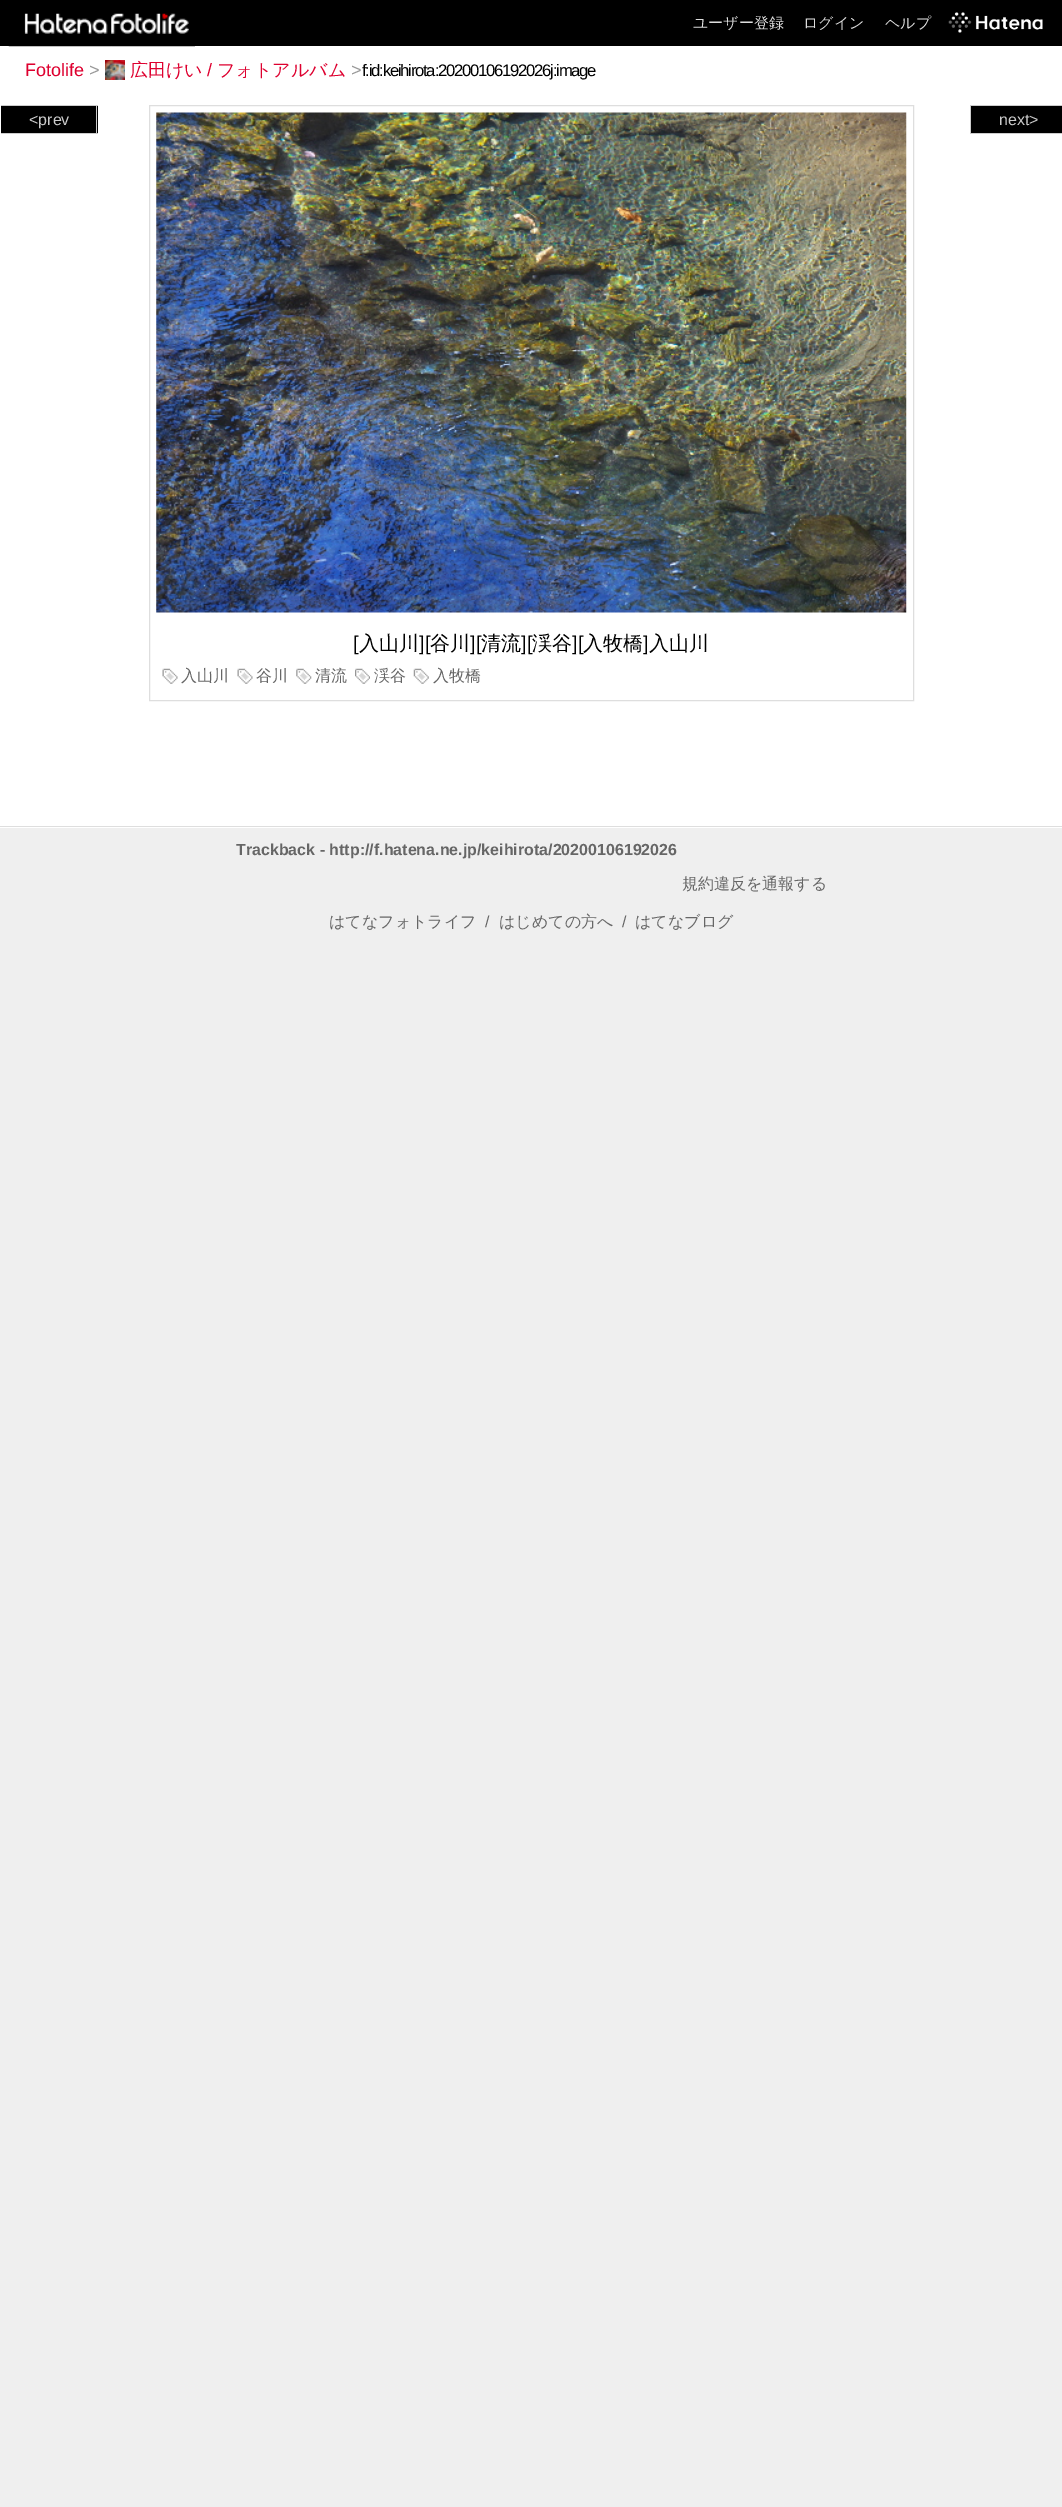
%!PS-Adobe-3.0
%%BoundingBox: 0 0 1062 2507
%%LanguageLevel: 3
%%Pages: 1
%%EndComments
%%BeginProlog
/setink { 3 { 255 div 3 1 roll } repeat setrgbcolor } def
/usefont { [ exch dup neg 0 0 3 -1 roll 0 0 ] selectfont } def
/drawtext { setink usefont moveto show } def
/fillbox { setink rectfill } def
/drawimage { 5 dict begin { /h /w /y /x /name } { exch def } forall
  gsave x y translate w h scale
  w h 8 [w 0 0 h 0 0] name (r) file false 3 colorimage grestore end } def
%%EndProlog
%%BeginSetup
<< /PageSize [1062 2507] >> setpagedevice
%%EndSetup
%%Page: 1 1
0 2507 translate 1 -1 scale
4 setmiterlimit
0 0 1062 2507 239 239 239 fillbox
0 0 1062 46 0 0 0 fillbox
0 46 1062 782 255 255 255 fillbox
(assets/img1.rgb) 8 13 104 34 drawimage
(assets/img2.rgb) 111 13 84 34 drawimage
(ユーザー登録) 693 28 /WenQuanYiZenHei-Medium 15 221 221 221 drawtext
(ログイン) 803 28 /WenQuanYiZenHei-Medium 15 221 221 221 drawtext
(ヘルプ) 885 28 /WenQuanYiZenHei-Medium 15 221 221 221 drawtext
(assets/img3.rgb) 948 12 95 21 drawimage
(Fotolife) 25 76 /LiberationSans-Regular 18 222 0 47 drawtext
(>) 89 76 /LiberationSans-Regular 18 153 153 153 drawtext
(assets/img4.rgb) 105 60 20 20 drawimage
(広田けい) 130 76 /WenQuanYiZenHei-Medium 18 222 0 47 drawtext
(/) 207 76 /LiberationSans-Regular 18 222 0 47 drawtext
(フォトアルバム) 217 76 /WenQuanYiZenHei-Medium 18 222 0 47 drawtext
(>) 351 76 /LiberationSans-Regular 18 153 153 153 drawtext
/LiberationSans-Regular 16.7 usefont
0 0 0 setink
362 76 moveto -1.25 0 (f:id:keihirota:20200106192026j:image) ashow
0 826 1062 1 222 222 222 fillbox
1 106 97 27 0 0 0 fillbox
1 105 97 1 204 204 204 fillbox
96 105 1 29 204 204 204 fillbox
1 133 97 1 204 204 204 fillbox
(<prev) 29 125 /LiberationSans-Regular 16 204 204 204 drawtext
971 106 91 27 0 0 0 fillbox
970 105 92 1 204 204 204 fillbox
970 133 92 1 204 204 204 fillbox
970 105 1 29 204 204 204 fillbox
(next>) 999 125 /LiberationSans-Regular 16 204 204 204 drawtext
222 222 222 setink
149.5 105.5 764 595 rectstroke
(assets/img5.rgb) 156 112 751 501 drawimage
([) 353 650 /LiberationSans-Regular 20 0 0 0 drawtext
(入山川) 359 650 /WenQuanYiZenHei-Medium 20 0 0 0 drawtext
(][) 419 650 /LiberationSans-Regular 20 0 0 0 drawtext
(谷川) 430 650 /WenQuanYiZenHei-Medium 20 0 0 0 drawtext
(][) 470 650 /LiberationSans-Regular 20 0 0 0 drawtext
(清流) 481 650 /WenQuanYiZenHei-Medium 20 0 0 0 drawtext
(][) 521 650 /LiberationSans-Regular 20 0 0 0 drawtext
(渓谷) 532 650 /WenQuanYiZenHei-Medium 20 0 0 0 drawtext
(][) 572 650 /LiberationSans-Regular 20 0 0 0 drawtext
(入牧橋) 583 650 /WenQuanYiZenHei-Medium 20 0 0 0 drawtext
(]) 643 650 /LiberationSans-Regular 20 0 0 0 drawtext
(入山川) 649 650 /WenQuanYiZenHei-Medium 20 0 0 0 drawtext
(assets/img6.rgb) 162 668 16 16 drawimage
(入山川) 181 681 /WenQuanYiZenHei-Medium 16 102 102 102 drawtext
(assets/img6.rgb) 237 668 16 16 drawimage
(谷川) 256 681 /WenQuanYiZenHei-Medium 16 102 102 102 drawtext
(assets/img7.rgb) 296 668 16 16 drawimage
(清流) 315 681 /WenQuanYiZenHei-Medium 16 102 102 102 drawtext
(assets/img8.rgb) 355 668 15 16 drawimage
(渓谷) 374 681 /WenQuanYiZenHei-Medium 16 102 102 102 drawtext
(assets/img9.rgb) 413 668 16 16 drawimage
(入牧橋) 433 681 /WenQuanYiZenHei-Medium 16 102 102 102 drawtext
(Trackback - http://f.hatena.ne.jp/keihirota/20200106192026) 236 855 /LiberationSans-Bold 16 102 102 102 drawtext
(規約違反を通報する) 682 889 /WenQuanYiZenHei-Medium 16 102 102 102 drawtext
(はてなフォトライフ) 329 927 /WenQuanYiZenHei-Medium 16 102 102 102 drawtext
(/) 485 927 /LiberationSans-Regular 16 102 102 102 drawtext
(はじめての方へ) 499 927 /WenQuanYiZenHei-Medium 16 102 102 102 drawtext
(/) 622 927 /LiberationSans-Regular 16 102 102 102 drawtext
(はてなブログ) 635 927 /WenQuanYiZenHei-Medium 16 102 102 102 drawtext
showpage
%%EOF
